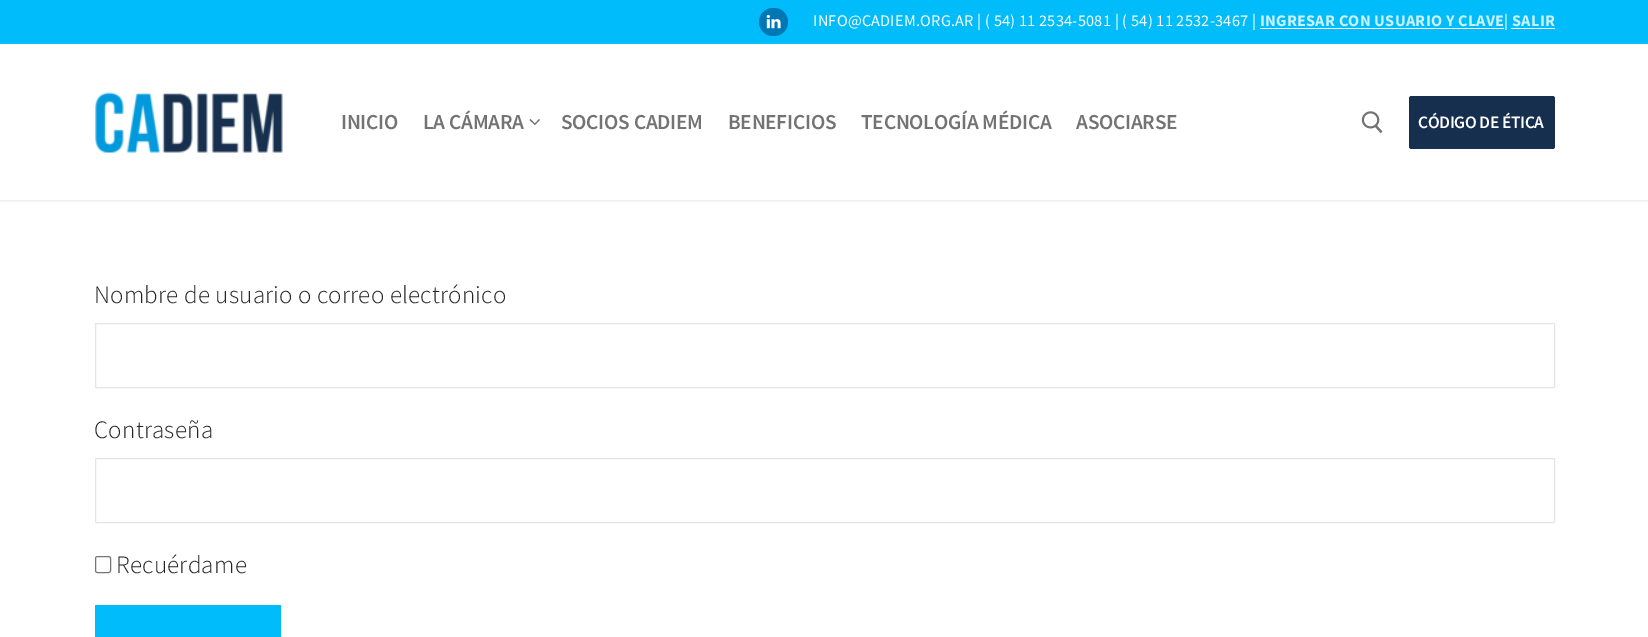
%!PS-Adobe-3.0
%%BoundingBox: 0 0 1648 637
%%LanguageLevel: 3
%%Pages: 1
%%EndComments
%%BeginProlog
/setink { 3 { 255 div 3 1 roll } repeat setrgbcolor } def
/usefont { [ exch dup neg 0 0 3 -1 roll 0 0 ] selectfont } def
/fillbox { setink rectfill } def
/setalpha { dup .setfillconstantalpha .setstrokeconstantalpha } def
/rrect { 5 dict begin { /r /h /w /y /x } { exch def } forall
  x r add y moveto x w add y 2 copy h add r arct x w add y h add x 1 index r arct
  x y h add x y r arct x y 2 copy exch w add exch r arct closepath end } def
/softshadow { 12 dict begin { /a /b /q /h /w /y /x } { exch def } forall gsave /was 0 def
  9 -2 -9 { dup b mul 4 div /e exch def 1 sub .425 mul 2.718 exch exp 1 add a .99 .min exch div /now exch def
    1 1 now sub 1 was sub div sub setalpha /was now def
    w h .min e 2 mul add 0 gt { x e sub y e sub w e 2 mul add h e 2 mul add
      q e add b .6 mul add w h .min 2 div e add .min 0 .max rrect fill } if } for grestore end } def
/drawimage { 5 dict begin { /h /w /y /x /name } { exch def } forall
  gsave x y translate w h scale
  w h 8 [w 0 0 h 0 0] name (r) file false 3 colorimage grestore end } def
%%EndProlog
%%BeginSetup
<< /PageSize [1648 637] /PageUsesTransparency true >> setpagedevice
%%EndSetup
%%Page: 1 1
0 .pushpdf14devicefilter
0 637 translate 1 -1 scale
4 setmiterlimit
0 0 1648 637 255 255 255 fillbox
0 0 1648 44 0 188 250 fillbox
0 119 181 setink
759 8 29 28 14 rrect fill
(assets/img1.rgb) 766 14 15 15 drawimage
/SourceSansPro-Regular 16.25 usefont
252 254 255 setink
813 26 moveto 0.25 0 (INFO@CADIEM.ORG.AR | \( 54\) 11 2534-5081 | \( 54\) 11 2532-3467 |) ashow
/SourceSansPro-Bold 16.25 usefont
201 241 254 setink
1260 26 moveto 0.25 0 (INGRESAR CON USUARIO Y CLAVE) ashow
1260 28 244 1 252 254 255 fillbox
/SourceSansPro-Regular 16.25 usefont
1504 26 moveto 0.25 0 (|) ashow
/SourceSansPro-Bold 16.25 usefont
201 241 254 setink
1512 26 moveto 0.25 0 (SALIR) ashow
1511 28 44 1 252 254 255 fillbox
gsave
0 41 moveto 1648 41 lineto 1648 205 lineto 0 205 lineto closepath 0 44 moveto 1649 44 lineto 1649 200 lineto 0 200 lineto closepath eoclip newpath
225 229 234 setink
0 45 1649 156 0 1 1 softshadow
grestore
(assets/img2.rgb) 95 92 188 61 drawimage
/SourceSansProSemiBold-SemiBold 21.25 usefont
115 115 115 setink
341 129 moveto -0.25 0 (INICIO) ashow
423 129 moveto -0.25 0 (LA CÁMARA) ashow
535 125 moveto 529.5 120 lineto 530.5 119 lineto 535 123.5 lineto closepath 540 120 moveto 535 125 lineto 535 123.5 lineto 539 119 lineto closepath fill
561 129 moveto -0.25 0 (SOCIOS CADIEM) ashow
728 129 moveto -0.25 0 (BENEFICIOS) ashow
861 129 moveto -0.25 0 (TECNOLOGÍA MÉDICA) ashow
1076 129 moveto -0.25 0 (ASOCIARSE) ashow
(assets/img3.rgb) 1361 111 22 23 drawimage
23 47 78 setink
1409 96 146 53 2.5 rrect fill
/SourceSansProSemiBold-SemiBold 17.5 usefont
252 254 255 setink
1418 128 moveto -0.4 0 (CÓDIGO DE ÉTICA) ashow
/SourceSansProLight-Light 25 usefont
37 37 37 setink
94 303 moveto 0.25 0 (Nombre de usuario o correo electrónico) ashow
229 229 229 setink
95.5 323.5 1459 64 0.5 rrect stroke
37 37 37 setink
94 438 moveto 0.25 0 (Contraseña) ashow
229 229 229 setink
95.5 458.5 1459 64 0.5 rrect stroke
118 118 118 setink
95.5 556.5 15 16 2 rrect stroke
37 37 37 setink
116 573 moveto 0.25 0 (Recuérdame) ashow
0 188 250 setink
95 605 186 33 1 rrect fill
.poppdf14devicefilter showpage
%%EOF
